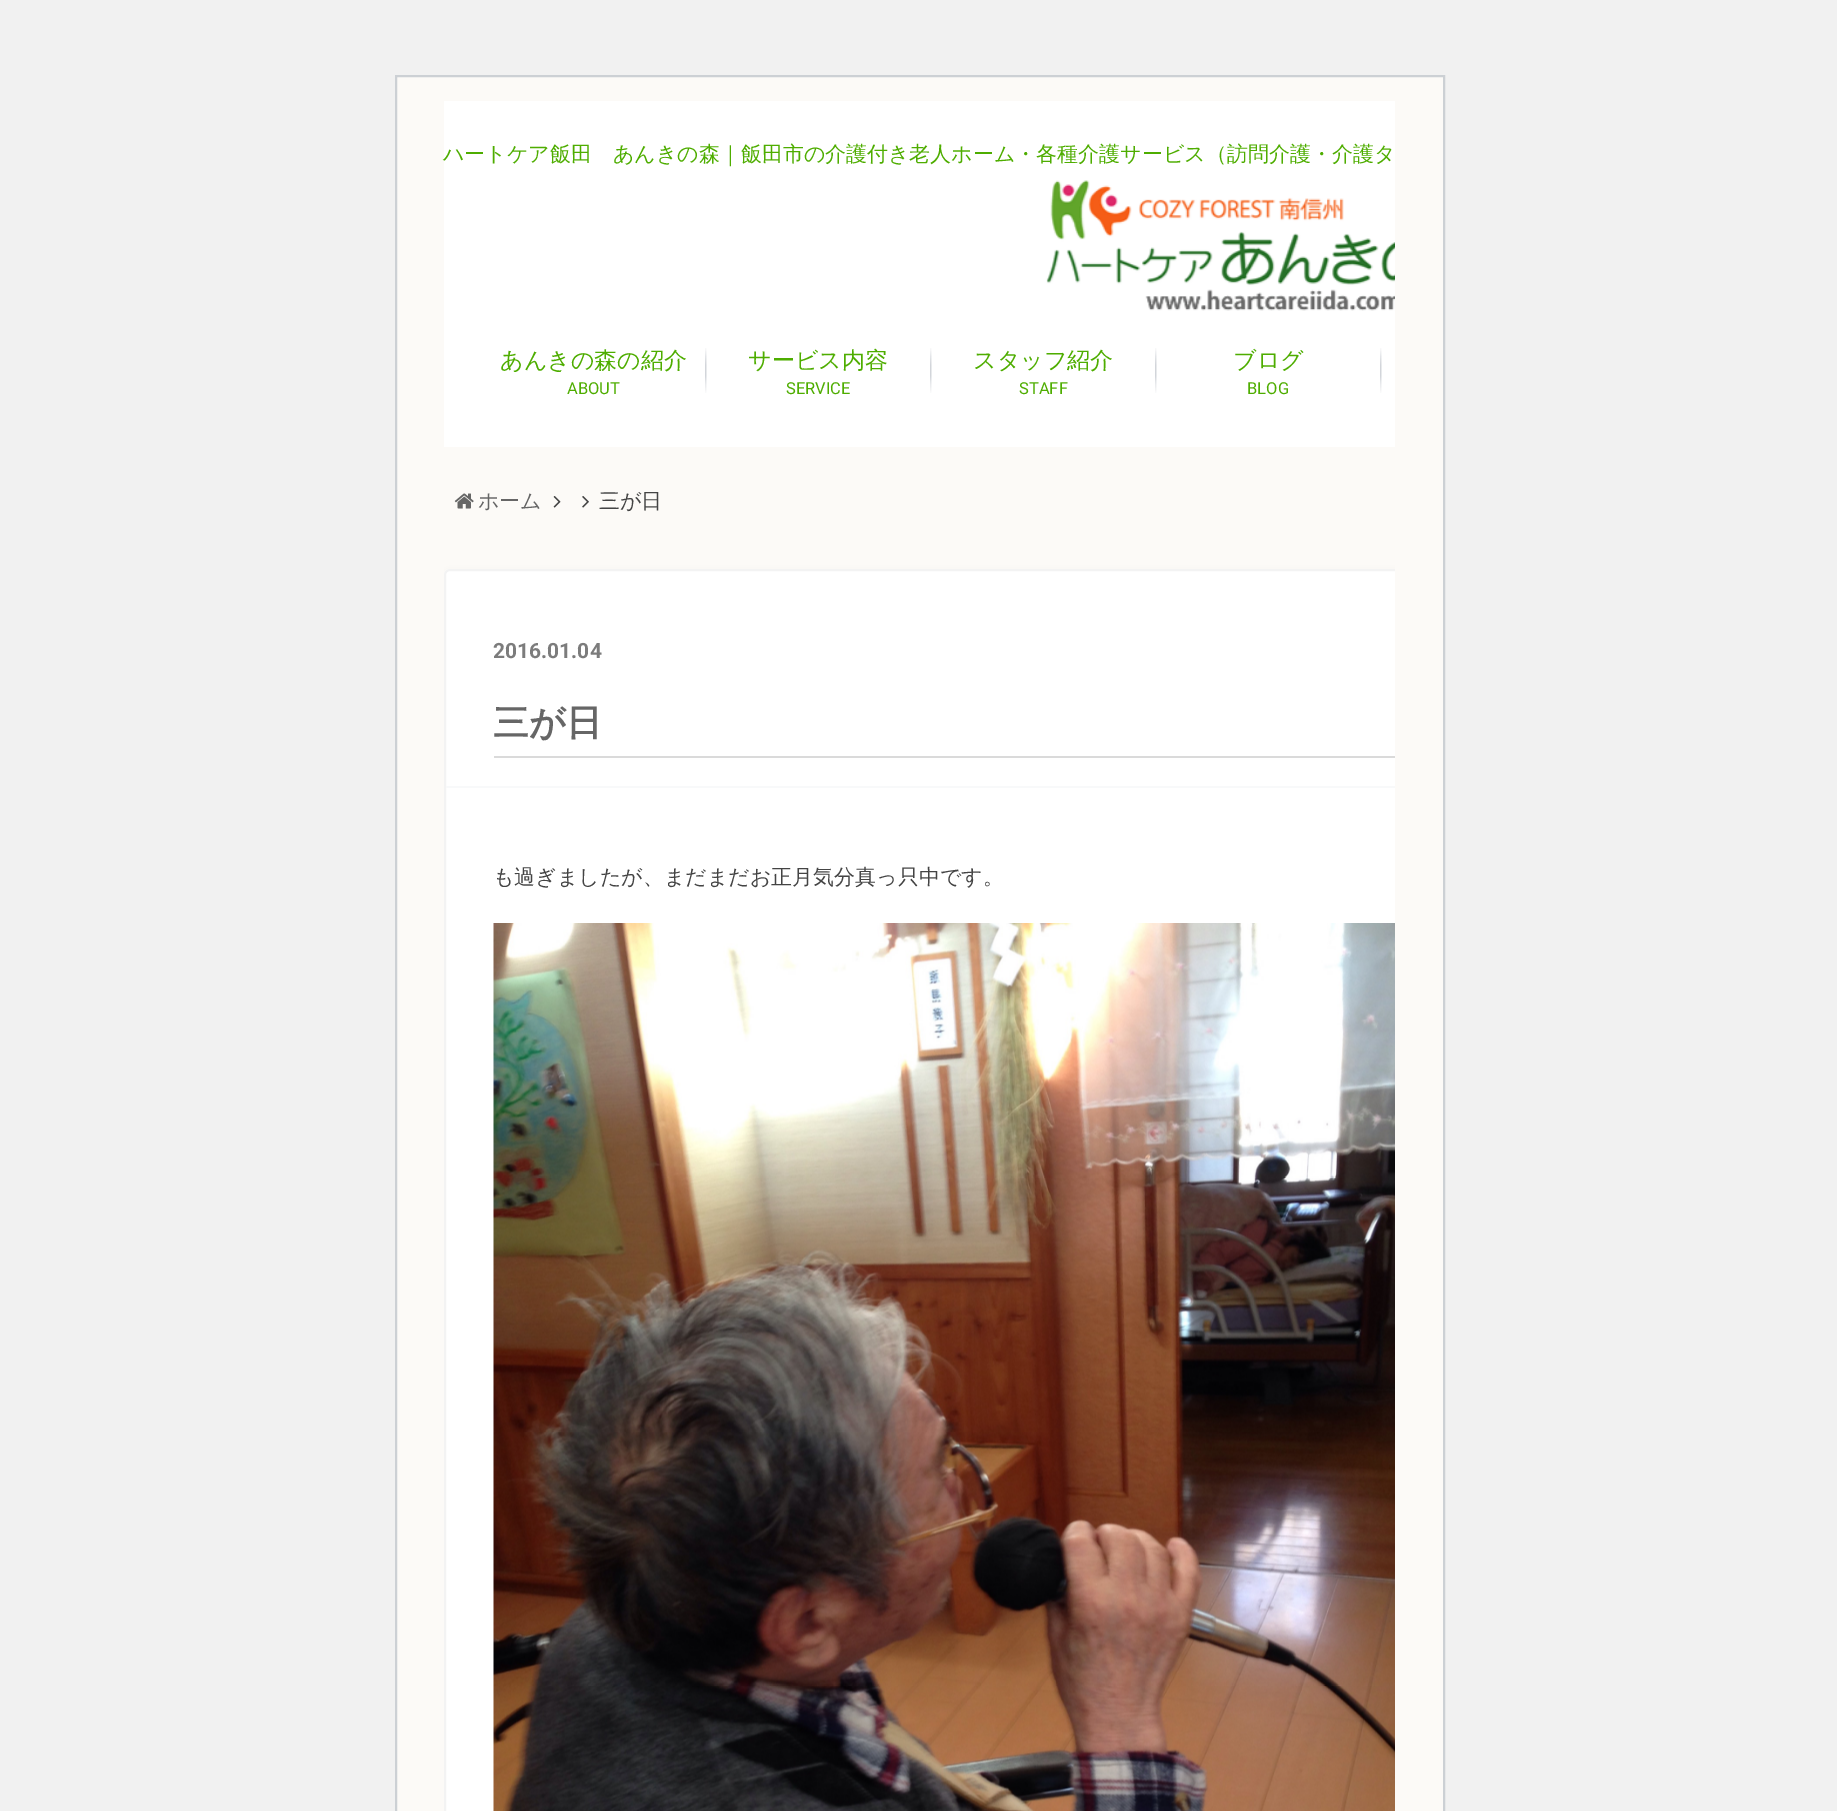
%!PS-Adobe-3.0
%%BoundingBox: 0 0 1837 1811
%%LanguageLevel: 3
%%Pages: 1
%%EndComments
%%BeginProlog
/setink { 3 { 255 div 3 1 roll } repeat setrgbcolor } def
/usefont { [ exch dup neg 0 0 3 -1 roll 0 0 ] selectfont } def
/drawtext { setink usefont moveto show } def
/fillbox { setink rectfill } def
/setalpha { dup .setfillconstantalpha .setstrokeconstantalpha } def
/rrect { 5 dict begin { /r /h /w /y /x } { exch def } forall
  x r add y moveto x w add y 2 copy h add r arct x w add y h add x 1 index r arct
  x y h add x y r arct x y 2 copy exch w add exch r arct closepath end } def
/softshadow { 12 dict begin { /a /b /q /h /w /y /x } { exch def } forall gsave /was 0 def
  9 -2 -9 { dup b mul 4 div /e exch def 1 sub .425 mul 2.718 exch exp 1 add a .99 .min exch div /now exch def
    1 1 now sub 1 was sub div sub setalpha /was now def
    w h .min e 2 mul add 0 gt { x e sub y e sub w e 2 mul add h e 2 mul add
      q e add b .6 mul add w h .min 2 div e add .min 0 .max rrect fill } if } for grestore end } def
/drawimage { 5 dict begin { /h /w /y /x /name } { exch def } forall
  gsave x y translate w h scale
  w h 8 [w 0 0 h 0 0] name (r) file false 3 colorimage grestore end } def
%%EndProlog
%%BeginSetup
<< /PageSize [1837 1811] /PageUsesTransparency true >> setpagedevice
%%EndSetup
%%Page: 1 1
0 .pushpdf14devicefilter
0 1811 translate 1 -1 scale
4 setmiterlimit
0 0 1837 1811 241 241 241 fillbox
252 250 247 setink
396 76 moveto 1444 76 lineto 1444 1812 lineto 396 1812 lineto closepath gsave fill grestore
204 208 212 setink
2 setlinewidth
stroke
444 101 951 346 255 255 255 fillbox
(ハートケア飯田　あんきの森｜飯田市の介護付き老人ホーム・各種介護サービス（訪問介護・介護タ) 443 161 /WenQuanYiZenHei-Medium 21 78 173 0 drawtext
(assets/img1.rgb) 1046 180 349 131 drawimage
(assets/img2.rgb) 705 348 2 45 drawimage
(あんきの森の紹介) 500 368 /WenQuanYiZenHei-Medium 23 78 173 0 drawtext
(ABOUT) 567 394 /Roboto-Regular 16.5 78 173 0 drawtext
(assets/img2.rgb) 930 348 2 45 drawimage
(サービス内容) 748 368 /WenQuanYiZenHei-Medium 23 78 173 0 drawtext
(SERVICE) 786 394 /Roboto-Regular 16.5 78 173 0 drawtext
(assets/img2.rgb) 1155 348 2 45 drawimage
(スタッフ紹介) 973 368 /WenQuanYiZenHei-Medium 23 78 173 0 drawtext
(STAFF) 1019 394 /Roboto-Regular 16.5 78 173 0 drawtext
(assets/img2.rgb) 1380 348 2 45 drawimage
(ブログ) 1233 368 /WenQuanYiZenHei-Medium 23 78 173 0 drawtext
(BLOG) 1247 394 /Roboto-Regular 16.5 78 173 0 drawtext
(assets/img3.rgb) 454 493 20 16 drawimage
(ホーム) 478 508 /WenQuanYiZenHei-Medium 21 102 102 102 drawtext
(assets/img4.rgb) 553 496 8 12 drawimage
(assets/img5.rgb) 582 496 7 12 drawimage
(三が日) 599 508 /WenQuanYiZenHei-Medium 21 68 68 68 drawtext
gsave
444 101 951 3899 rectclip
138 138 138 setink
444 572 1080 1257 6 4 0.15 softshadow
grestore
255 255 255 setink
450 569 moveto 1395 569 lineto 1395 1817 lineto 450 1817 lineto 446.5 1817 444 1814.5 444 1811 curveto 444 575 lineto 444 571.5 446.5 569 450 569 curveto closepath fill
gsave
444 101 951 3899 rectclip
243 243 243 setink
445 570 1078 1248 5 rrect stroke
grestore
446 786 949 2 248 249 250 fillbox
(2016.01.04) 493 658 /Roboto-Bold 21 124 124 124 drawtext
494 756 901 2 218 218 218 fillbox
(三が日) 493 735 /WenQuanYiZenHei-Bold 36 102 102 102 drawtext
(も過ぎましたが、まだまだお正月気分真っ只中です。) 493 884 /WenQuanYiZenHei-Medium 21 68 68 68 drawtext
(assets/img6.rgb) 493 923 902 888 drawimage
.poppdf14devicefilter showpage
%%EOF
